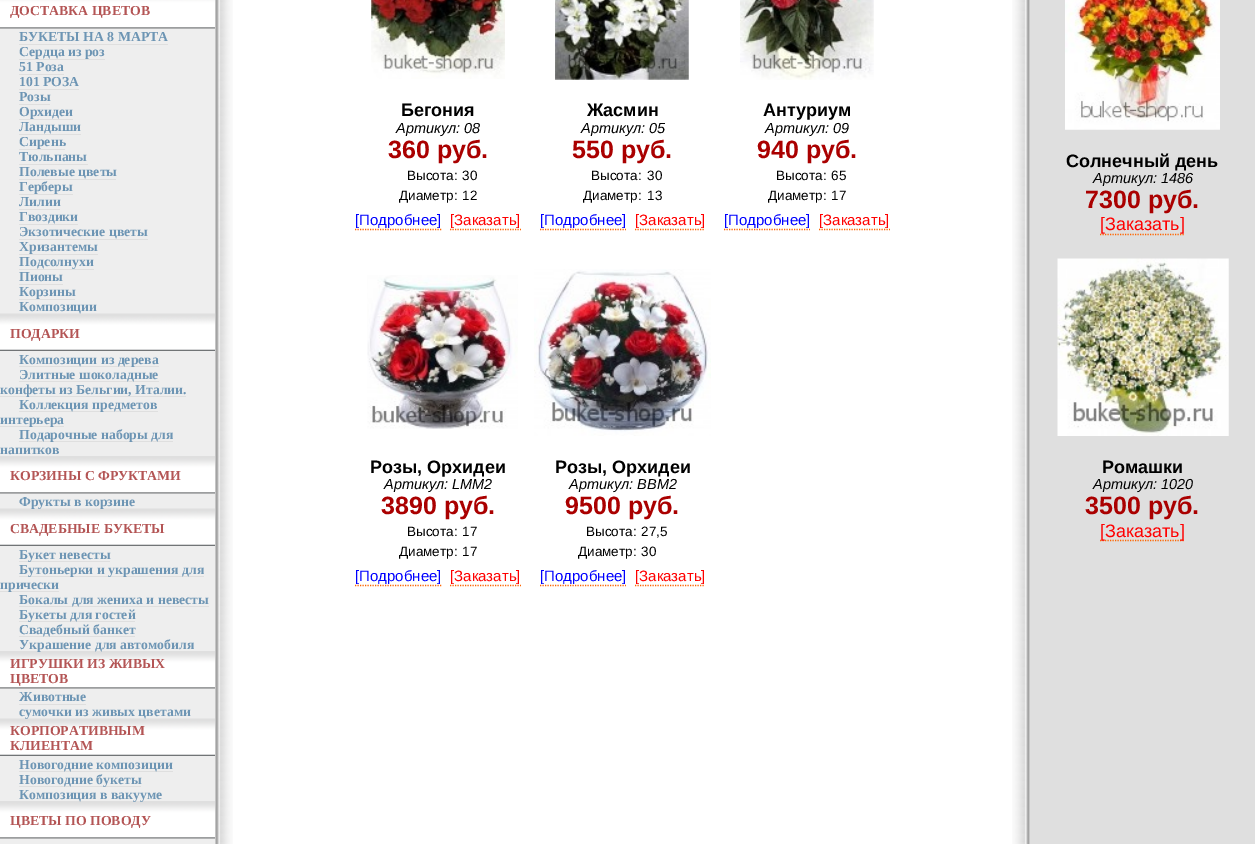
%!PS-Adobe-3.0
%%BoundingBox: 0 0 1255 844
%%LanguageLevel: 3
%%Pages: 1
%%EndComments
%%BeginProlog
/setink { 3 { 255 div 3 1 roll } repeat setrgbcolor } def
/usefont { [ exch dup neg 0 0 3 -1 roll 0 0 ] selectfont } def
/drawtext { setink usefont moveto show } def
/fillbox { setink rectfill } def
/drawimage { 5 dict begin { /h /w /y /x /name } { exch def } forall
  gsave x y translate w h scale
  w h 8 [w 0 0 h 0 0] name (r) file false 3 colorimage grestore end } def
%%EndProlog
%%BeginSetup
<< /PageSize [1255 844] >> setpagedevice
%%EndSetup
%%Page: 1 1
0 844 translate 1 -1 scale
4 setmiterlimit
0 0 1255 844 255 255 255 fillbox
0 28 215 816 238 238 238 fillbox
(assets/img1.rgb) 0 0 215 29 drawimage
(ДОСТАВКА ЦВЕТОВ) 10 15 /LiberationSerif-Bold 13.75 180 85 85 drawtext
(БУКЕТЫ НА 8 МАРТА) 19 41 /LiberationSerif-Bold 13.75 109 149 180 drawtext
19 44 149 1 223 223 223 fillbox
(Сердца из роз) 19 56 /LiberationSerif-Bold 13.75 109 149 180 drawtext
19 59 86 1 223 223 223 fillbox
(51 Роза) 19 71 /LiberationSerif-Bold 13.75 109 149 180 drawtext
19 74 45 1 223 223 223 fillbox
(101 РОЗА) 19 86 /LiberationSerif-Bold 13.75 109 149 180 drawtext
19 89 60 1 223 223 223 fillbox
(Розы) 19 101 /LiberationSerif-Bold 13.75 109 149 180 drawtext
19 104 31 1 223 223 223 fillbox
(Орхидеи) 19 116 /LiberationSerif-Bold 13.75 109 149 180 drawtext
19 119 54 1 223 223 223 fillbox
(Ландыши) 19 131 /LiberationSerif-Bold 13.75 109 149 180 drawtext
19 134 62 1 223 223 223 fillbox
(Сирень) 19 146 /LiberationSerif-Bold 13.75 109 149 180 drawtext
19 149 46 1 223 223 223 fillbox
(Тюльпаны) 19 161 /LiberationSerif-Bold 13.75 109 149 180 drawtext
19 164 69 1 223 223 223 fillbox
(Полевые цветы) 19 176 /LiberationSerif-Bold 13.75 109 149 180 drawtext
19 179 97 1 223 223 223 fillbox
(Герберы) 19 191 /LiberationSerif-Bold 13.75 109 149 180 drawtext
19 194 54 1 223 223 223 fillbox
(Лилии) 19 206 /LiberationSerif-Bold 13.75 109 149 180 drawtext
19 209 41 1 223 223 223 fillbox
(Гвоздики) 19 221 /LiberationSerif-Bold 13.75 109 149 180 drawtext
19 224 59 1 223 223 223 fillbox
(Экзотические цветы) 19 236 /LiberationSerif-Bold 13.75 109 149 180 drawtext
19 239 129 1 223 223 223 fillbox
(Хризантемы) 19 251 /LiberationSerif-Bold 13.75 109 149 180 drawtext
19 254 79 1 223 223 223 fillbox
(Подсолнухи) 19 266 /LiberationSerif-Bold 13.75 109 149 180 drawtext
19 269 75 1 223 223 223 fillbox
(Пионы) 19 281 /LiberationSerif-Bold 13.75 109 149 180 drawtext
19 284 44 1 223 223 223 fillbox
(Корзины) 19 296 /LiberationSerif-Bold 13.75 109 149 180 drawtext
19 299 56 1 223 223 223 fillbox
(assets/img2.rgb) 0 313 215 38 drawimage
(Композиции) 19 311 /LiberationSerif-Bold 13.75 109 149 180 drawtext
(ПОДАРКИ) 10 338 /LiberationSerif-Bold 13.75 180 85 85 drawtext
19 366 140 1 223 223 223 fillbox
(Композиции из дерева) 19 364 /LiberationSerif-Bold 13.75 109 149 180 drawtext
19 381 140 1 223 223 223 fillbox
(Элитные шоколадные) 19 379 /LiberationSerif-Bold 13.75 109 149 180 drawtext
0 396 186 1 223 223 223 fillbox
(конфеты из Бельгии, Италии.) 0 394 /LiberationSerif-Bold 13.75 109 149 180 drawtext
19 411 139 1 223 223 223 fillbox
(Коллекция предметов) 19 409 /LiberationSerif-Bold 13.75 109 149 180 drawtext
0 426 64 1 223 223 223 fillbox
(интерьера) 0 424 /LiberationSerif-Bold 13.75 109 149 180 drawtext
19 441 154 1 223 223 223 fillbox
(Подарочные наборы для) 19 439 /LiberationSerif-Bold 13.75 109 149 180 drawtext
(напитков) 0 454 /LiberationSerif-Bold 13.75 109 149 180 drawtext
(assets/img3.rgb) 0 456 215 38 drawimage
(КОРЗИНЫ С ФРУКТАМИ) 10 480 /LiberationSerif-Bold 13.75 180 85 85 drawtext
(assets/img4.rgb) 0 508 215 38 drawimage
(Фрукты в корзине) 19 506 /LiberationSerif-Bold 13.75 109 149 180 drawtext
(СВАДЕБНЫЕ БУКЕТЫ) 10 533 /LiberationSerif-Bold 13.75 180 85 85 drawtext
19 561 91 1 223 223 223 fillbox
(Букет невесты) 19 559 /LiberationSerif-Bold 13.75 109 149 180 drawtext
19 576 185 1 223 223 223 fillbox
(Бутоньерки и украшения для) 19 574 /LiberationSerif-Bold 13.75 109 149 180 drawtext
0 591 59 1 223 223 223 fillbox
(прически) 0 589 /LiberationSerif-Bold 13.75 109 149 180 drawtext
19 606 190 1 223 223 223 fillbox
(Бокалы для жениха и невесты) 19 604 /LiberationSerif-Bold 13.75 109 149 180 drawtext
19 621 116 1 223 223 223 fillbox
(Букеты для гостей) 19 619 /LiberationSerif-Bold 13.75 109 149 180 drawtext
19 636 116 1 223 223 223 fillbox
(Свадебный банкет) 19 634 /LiberationSerif-Bold 13.75 109 149 180 drawtext
(assets/img5.rgb) 0 651 215 38 drawimage
(Украшение для автомобиля) 19 649 /LiberationSerif-Bold 13.75 109 149 180 drawtext
(ИГРУШКИ ИЗ ЖИВЫХ) 10 668 /LiberationSerif-Bold 13.75 180 85 85 drawtext
(ЦВЕТОВ) 10 683 /LiberationSerif-Bold 13.75 180 85 85 drawtext
(Животные) 19 701 /LiberationSerif-Bold 13.75 109 149 180 drawtext
19 704 67 1 223 223 223 fillbox
(assets/img6.rgb) 0 718 215 38 drawimage
(сумочки из живых цветами) 19 716 /LiberationSerif-Bold 13.75 109 149 180 drawtext
(КОРПОРАТИВНЫМ) 10 735 /LiberationSerif-Bold 13.75 180 85 85 drawtext
(КЛИЕНТАМ) 10 750 /LiberationSerif-Bold 13.75 180 85 85 drawtext
19 771 154 1 223 223 223 fillbox
(Новогодние композиции) 19 769 /LiberationSerif-Bold 13.75 109 149 180 drawtext
19 786 122 1 223 223 223 fillbox
(Новогодние букеты) 19 784 /LiberationSerif-Bold 13.75 109 149 180 drawtext
(assets/img5.rgb) 0 801 215 38 drawimage
(Композиция в вакууме) 19 799 /LiberationSerif-Bold 13.75 109 149 180 drawtext
(ЦВЕТЫ ПО ПОВОДУ) 10 825 /LiberationSerif-Bold 13.75 180 85 85 drawtext
(assets/img7.rgb) 215 0 18 844 drawimage
(assets/img8.rgb) 371 0 134 79 drawimage
(Бегония) 401 116 /LiberationSans-Bold 18 0 0 0 drawtext
(Артикул: 08) 396 133 /LiberationSans-Italic 14.5 0 0 0 drawtext
(360 руб.) 388 158 /LiberationSans-Bold 25 170 0 0 drawtext
(Высота:) 407 180 /LiberationSans-Regular 13.5 0 0 0 drawtext
(30) 462 180 /LiberationSans-Regular 13.5 0 0 0 drawtext
(Диаметр:) 399 200 /LiberationSans-Regular 13.5 0 0 0 drawtext
(12) 462 200 /LiberationSans-Regular 13.5 0 0 0 drawtext
(assets/img9.rgb) 555 0 134 80 drawimage
(Жасмин) 587 116 /LiberationSans-Bold 18 0 0 0 drawtext
(Артикул: 05) 581 133 /LiberationSans-Italic 14.5 0 0 0 drawtext
(550 руб.) 572 158 /LiberationSans-Bold 25 170 0 0 drawtext
(Высота:) 591 180 /LiberationSans-Regular 13.5 0 0 0 drawtext
(30) 647 180 /LiberationSans-Regular 13.5 0 0 0 drawtext
(Диаметр:) 583 200 /LiberationSans-Regular 13.5 0 0 0 drawtext
(13) 647 200 /LiberationSans-Regular 13.5 0 0 0 drawtext
(assets/img10.rgb) 740 0 134 80 drawimage
(Антуриум) 763 116 /LiberationSans-Bold 18 0 0 0 drawtext
(Артикул: 09) 765 133 /LiberationSans-Italic 14.5 0 0 0 drawtext
(940 руб.) 757 158 /LiberationSans-Bold 25 170 0 0 drawtext
(Высота:) 776 180 /LiberationSans-Regular 13.5 0 0 0 drawtext
(65) 831 180 /LiberationSans-Regular 13.5 0 0 0 drawtext
(Диаметр:) 768 200 /LiberationSans-Regular 13.5 0 0 0 drawtext
(17) 831 200 /LiberationSans-Regular 13.5 0 0 0 drawtext
255 102 0 setink
1.2 setlinewidth
[1.25 1.25] 0 setdash
355 229.5 moveto 442.5 229.5 lineto stroke
([Подробнее]) 355 225 /LiberationSans-Regular 15 0 0 255 drawtext
255 102 0 setink
450 229.5 moveto 521 229.5 lineto stroke
([Заказать]) 450 225 /LiberationSans-Regular 15 255 0 0 drawtext
255 102 0 setink
540 229.5 moveto 626 229.5 lineto stroke
([Подробнее]) 540 225 /LiberationSans-Regular 15 0 0 255 drawtext
255 102 0 setink
635 229.5 moveto 705 229.5 lineto stroke
([Заказать]) 635 225 /LiberationSans-Regular 15 255 0 0 drawtext
255 102 0 setink
724 229.5 moveto 810 229.5 lineto stroke
([Подробнее]) 724 225 /LiberationSans-Regular 15 0 0 255 drawtext
255 102 0 setink
819 229.5 moveto 890 229.5 lineto stroke
([Заказать]) 819 225 /LiberationSans-Regular 15 255 0 0 drawtext
(assets/img11.rgb) 367 275 151 154 drawimage
(Розы, Орхидеи) 370 473 /LiberationSans-Bold 18 0 0 0 drawtext
(Артикул: LMM2) 384 489 /LiberationSans-Italic 14.5 0 0 0 drawtext
(3890 руб.) 381 514 /LiberationSans-Bold 25 170 0 0 drawtext
(Высота:) 407 536 /LiberationSans-Regular 13.5 0 0 0 drawtext
(17) 462 536 /LiberationSans-Regular 13.5 0 0 0 drawtext
(Диаметр:) 399 556 /LiberationSans-Regular 13.5 0 0 0 drawtext
(17) 462 556 /LiberationSans-Regular 13.5 0 0 0 drawtext
(assets/img12.rgb) 534 269 177 167 drawimage
(Розы, Орхидеи) 555 473 /LiberationSans-Bold 18 0 0 0 drawtext
(Артикул: BBM2) 569 489 /LiberationSans-Italic 14.5 0 0 0 drawtext
(9500 руб.) 565 514 /LiberationSans-Bold 25 170 0 0 drawtext
(Высота:) 586 536 /LiberationSans-Regular 13.5 0 0 0 drawtext
(27,5) 641 536 /LiberationSans-Regular 13.5 0 0 0 drawtext
(Диаметр:) 578 556 /LiberationSans-Regular 13.5 0 0 0 drawtext
(30) 641 556 /LiberationSans-Regular 13.5 0 0 0 drawtext
255 102 0 setink
355 585.5 moveto 442.5 585.5 lineto stroke
([Подробнее]) 355 581 /LiberationSans-Regular 15 0 0 255 drawtext
255 102 0 setink
450 585.5 moveto 521 585.5 lineto stroke
([Заказать]) 450 581 /LiberationSans-Regular 15 255 0 0 drawtext
255 102 0 setink
540 585.5 moveto 626 585.5 lineto stroke
([Подробнее]) 540 581 /LiberationSans-Regular 15 0 0 255 drawtext
255 102 0 setink
635 585.5 moveto 705 585.5 lineto stroke
([Заказать]) 635 581 /LiberationSans-Regular 15 255 0 0 drawtext
(assets/img13.rgb) 1012 0 18 844 drawimage
1030 0 225 844 223 223 223 fillbox
(assets/img14.rgb) 1065 0 155 130 drawimage
(Солнечный день) 1066 167 /LiberationSans-Bold 18 0 0 0 drawtext
(Артикул: 1486) 1093 183 /LiberationSans-Italic 14.5 0 0 0 drawtext
(7300 руб.) 1085 208 /LiberationSans-Bold 25 170 0 0 drawtext
255 102 0 setink
1100 234.5 moveto 1185 234.5 lineto stroke
([Заказать]) 1100 230 /LiberationSans-Regular 18 255 0 0 drawtext
(assets/img15.rgb) 1057 258 172 178 drawimage
(Ромашки) 1102 473 /LiberationSans-Bold 18 0 0 0 drawtext
(Артикул: 1020) 1093 489 /LiberationSans-Italic 14.5 0 0 0 drawtext
(3500 руб.) 1085 514 /LiberationSans-Bold 25 170 0 0 drawtext
255 102 0 setink
1100 540.5 moveto 1185 540.5 lineto stroke
([Заказать]) 1100 537 /LiberationSans-Regular 18 255 0 0 drawtext
showpage
%%EOF
